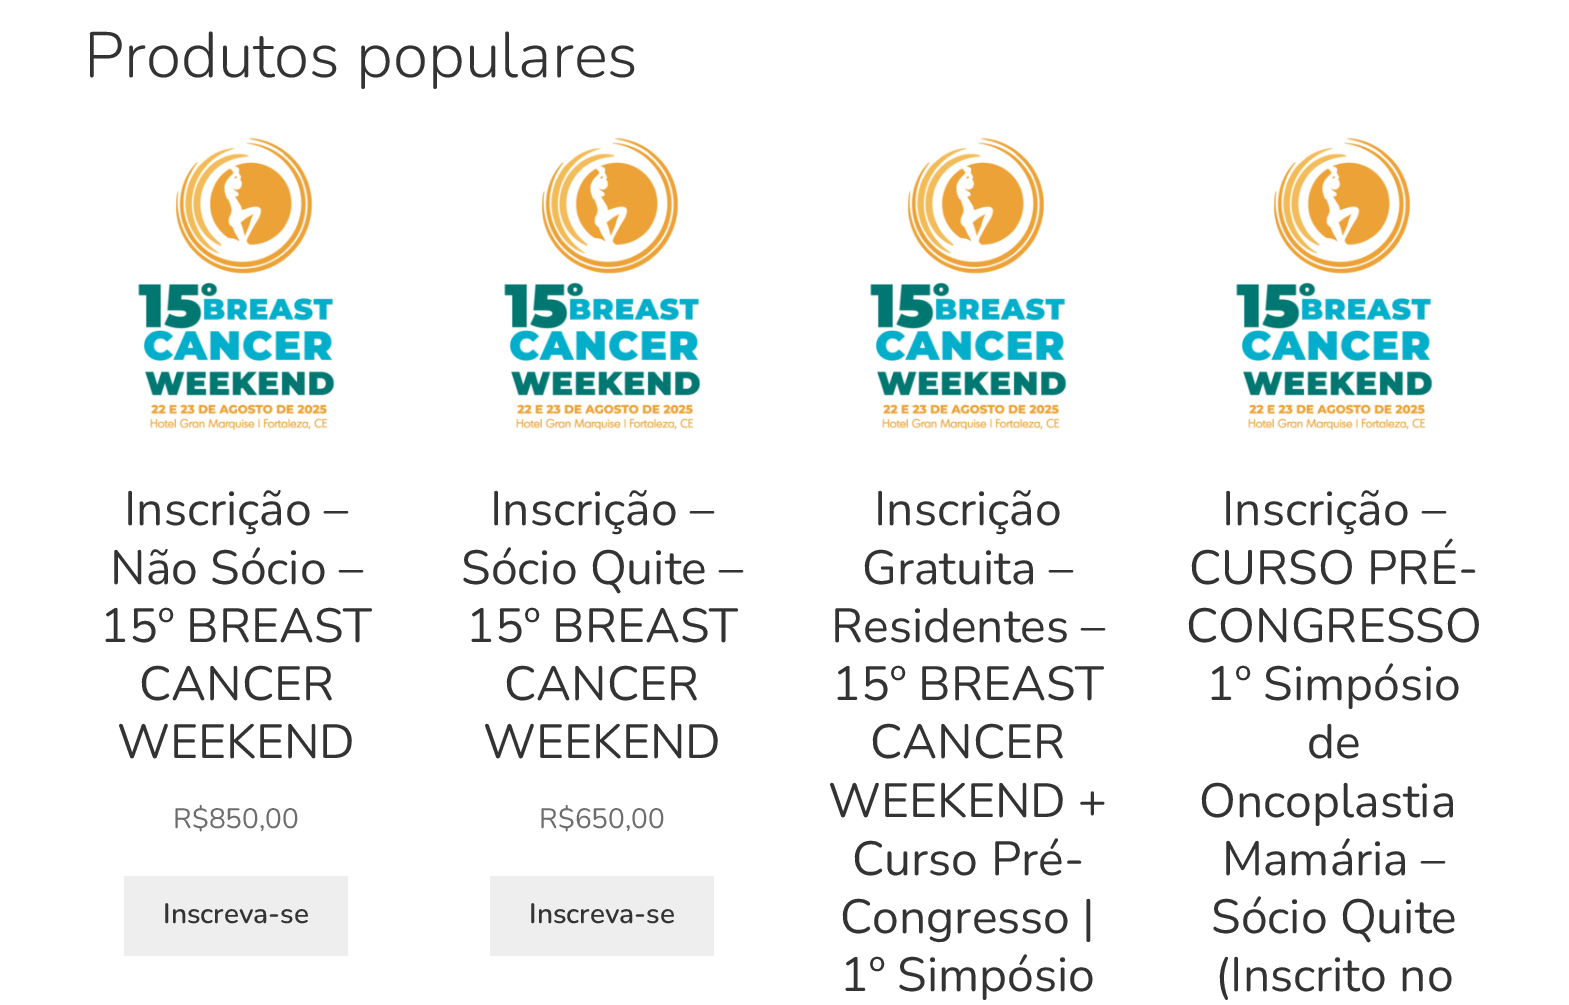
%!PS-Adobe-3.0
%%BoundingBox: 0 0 1569 1005
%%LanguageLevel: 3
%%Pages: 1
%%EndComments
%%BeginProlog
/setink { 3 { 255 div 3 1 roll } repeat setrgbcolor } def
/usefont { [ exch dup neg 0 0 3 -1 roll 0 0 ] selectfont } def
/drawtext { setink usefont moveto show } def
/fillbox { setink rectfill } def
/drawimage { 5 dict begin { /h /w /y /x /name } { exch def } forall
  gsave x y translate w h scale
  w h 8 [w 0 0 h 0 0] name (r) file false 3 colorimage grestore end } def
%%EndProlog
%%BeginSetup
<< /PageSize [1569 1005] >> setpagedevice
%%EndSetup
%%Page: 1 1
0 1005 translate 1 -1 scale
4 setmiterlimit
0 0 1569 1005 255 255 255 fillbox
(Produtos populares) 84 77 /Nunito-Light 64 51 51 51 drawtext
(assets/img1.rgb) 138 137 197 294 drawimage
(Inscrição –) 124 525 /Nunito-Regular 48 51 51 51 drawtext
(Não Sócio –) 110 584 /Nunito-Regular 48 51 51 51 drawtext
(15º BREAST) 100 642 /Nunito-Regular 48 51 51 51 drawtext
(CANCER) 139 700 /Nunito-Regular 48 51 51 51 drawtext
(WEEKEND) 117 758 /Nunito-Regular 48 51 51 51 drawtext
(R$850,00) 173 828 /Nunito-Regular 28 109 109 109 drawtext
124 876 224 80 238 238 238 fillbox
(Inscreva-se) 163 923 /Nunito-SemiBold 28 51 51 51 drawtext
(assets/img2.rgb) 504 137 197 294 drawimage
(Inscrição –) 490 525 /Nunito-Regular 48 51 51 51 drawtext
(Sócio Quite –) 461 584 /Nunito-Regular 48 51 51 51 drawtext
(15º BREAST) 466 642 /Nunito-Regular 48 51 51 51 drawtext
(CANCER) 504 700 /Nunito-Regular 48 51 51 51 drawtext
(WEEKEND) 483 758 /Nunito-Regular 48 51 51 51 drawtext
(R$650,00) 539 828 /Nunito-Regular 28 109 109 109 drawtext
490 876 224 80 238 238 238 fillbox
(Inscreva-se) 529 923 /Nunito-SemiBold 28 51 51 51 drawtext
(assets/img3.rgb) 870 137 197 294 drawimage
(Inscrição) 874 525 /Nunito-Regular 48 51 51 51 drawtext
(Gratuita –) 862 584 /Nunito-Regular 48 51 51 51 drawtext
(Residentes –) 831 642 /Nunito-Regular 48 51 51 51 drawtext
(15º BREAST) 832 700 /Nunito-Regular 48 51 51 51 drawtext
(CANCER) 870 758 /Nunito-Regular 48 51 51 51 drawtext
(WEEKEND +) 828 817 /Nunito-Regular 48 51 51 51 drawtext
(Curso Pré-) 852 875 /Nunito-Regular 48 51 51 51 drawtext
(Congresso |) 840 933 /Nunito-Regular 48 51 51 51 drawtext
(1º Simpósio) 840 991 /Nunito-Regular 48 51 51 51 drawtext
(assets/img4.rgb) 1236 137 197 294 drawimage
(Inscrição –) 1222 525 /Nunito-Regular 48 51 51 51 drawtext
(CURSO PRÉ-) 1189 584 /Nunito-Regular 48 51 51 51 drawtext
(CONGRESSO) 1186 642 /Nunito-Regular 48 51 51 51 drawtext
(1º Simpósio) 1206 700 /Nunito-Regular 48 51 51 51 drawtext
(de) 1307 758 /Nunito-Regular 48 51 51 51 drawtext
(Oncoplastia) 1199 817 /Nunito-Regular 48 51 51 51 drawtext
(Mamária –) 1222 875 /Nunito-Regular 48 51 51 51 drawtext
(Sócio Quite) 1211 933 /Nunito-Regular 48 51 51 51 drawtext
(\(Inscrito no) 1215 991 /Nunito-Regular 48 51 51 51 drawtext
showpage
%%EOF
